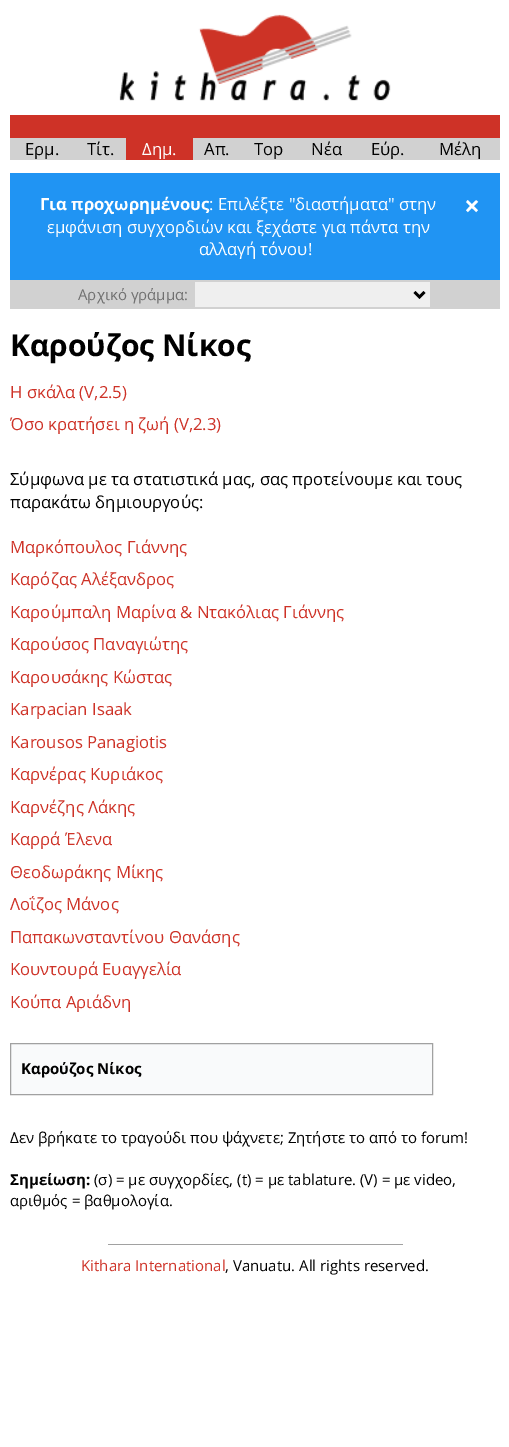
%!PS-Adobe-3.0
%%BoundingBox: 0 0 509 1447
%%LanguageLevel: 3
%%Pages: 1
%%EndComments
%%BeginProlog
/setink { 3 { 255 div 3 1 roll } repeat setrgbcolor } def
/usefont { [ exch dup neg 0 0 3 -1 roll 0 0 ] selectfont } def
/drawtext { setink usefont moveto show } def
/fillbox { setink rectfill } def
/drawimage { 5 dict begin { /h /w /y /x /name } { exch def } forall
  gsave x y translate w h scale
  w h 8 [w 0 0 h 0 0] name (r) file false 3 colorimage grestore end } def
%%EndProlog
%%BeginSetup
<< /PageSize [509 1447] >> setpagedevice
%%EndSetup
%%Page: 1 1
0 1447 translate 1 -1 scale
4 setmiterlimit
0 0 509 1447 255 255 255 fillbox
(assets/img1.rgb) 119 14 272 87 drawimage
10 115 490 23 206 50 39 fillbox
10 138 116 22 209 209 209 fillbox
(Ερμ.) 25 155 /OpenSans-Regular 16.7 0 0 0 drawtext
(Τίτ.) 87 155 /OpenSans-Regular 16.7 0 0 0 drawtext
126 138 67 22 206 50 39 fillbox
(Δημ.) 142 155 /OpenSans-Regular 16.7 255 255 255 drawtext
193 138 307 22 209 209 209 fillbox
(Απ.) 204 155 /OpenSans-Regular 16.7 0 0 0 drawtext
(Top) 254 155 /OpenSans-Regular 16.7 0 0 0 drawtext
(Νέα) 311 155 /OpenSans-Regular 16.7 0 0 0 drawtext
(Εύρ.) 371 155 /OpenSans-Regular 16.7 0 0 0 drawtext
(Μέλη) 439 155 /OpenSans-Regular 16.7 0 0 0 drawtext
10 173 490 107 32 148 243 fillbox
(Για προχωρημένους) 40 210 /OpenSans-Bold 16.7 255 255 255 drawtext
(: Επιλέξτε "διαστήματα" στην) 209 210 /OpenSans-Regular 16.7 255 255 255 drawtext
(×) 464 216 /OpenSans-Bold 28 255 255 255 drawtext
(εμφάνιση συγχορδιών και ξεχάστε για πάντα την) 47 233 /OpenSans-Regular 16.7 255 255 255 drawtext
(αλλαγή τόνου!) 199 255 /OpenSans-Regular 16.7 255 255 255 drawtext
10 280 490 29 209 209 209 fillbox
(Αρχικό γράμμα:) 78 300 /OpenSans-Regular 15 112 112 112 drawtext
195 282 235 25 239 239 239 fillbox
0 0 0 setink
2.5 setlinewidth
414.5 292 moveto 419.5 297 lineto 424.5 292 lineto stroke
(Καρούζος Νίκος) 10 356 /OpenSans-Bold 30 0 0 0 drawtext
(Η σκάλα \(V,2.5\)) 10 398 /OpenSans-Regular 16.7 206 50 39 drawtext
(Όσο κρατήσει η ζωή \(V,2.3\)) 10 430 /OpenSans-Regular 16.7 206 50 39 drawtext
(Σύμφωνα με τα στατιστικά μας, σας προτείνουμε και τους) 10 485 /OpenSans-Regular 16.7 0 0 0 drawtext
(παρακάτω δημιουργούς:) 10 508 /OpenSans-Regular 16.7 0 0 0 drawtext
(Μαρκόπουλος Γιάννης) 10 553 /OpenSans-Regular 16.7 206 50 39 drawtext
(Καρόζας Αλέξανδρος) 10 585 /OpenSans-Regular 16.7 206 50 39 drawtext
(Καρούμπαλη Μαρίνα & Ντακόλιας Γιάννης) 10 618 /OpenSans-Regular 16.7 206 50 39 drawtext
(Καρούσος Παναγιώτης) 10 650 /OpenSans-Regular 16.7 206 50 39 drawtext
(Καρουσάκης Κώστας) 10 683 /OpenSans-Regular 16.7 206 50 39 drawtext
(Karpacian Ιsaak) 10 715 /OpenSans-Regular 16.7 206 50 39 drawtext
(Karousos Panagiotis) 10 748 /OpenSans-Regular 16.7 206 50 39 drawtext
(Καρνέρας Κυριάκος) 10 780 /OpenSans-Regular 16.7 206 50 39 drawtext
(Καρνέζης Λάκης) 10 813 /OpenSans-Regular 16.7 206 50 39 drawtext
(Καρρά Έλενα) 10 845 /OpenSans-Regular 16.7 206 50 39 drawtext
(Θεοδωράκης Μίκης) 10 878 /OpenSans-Regular 16.7 206 50 39 drawtext
(Λοΐζος Μάνος) 10 910 /OpenSans-Regular 16.7 206 50 39 drawtext
(Παπακωνσταντίνου Θανάσης) 10 943 /OpenSans-Regular 16.7 206 50 39 drawtext
(Κουντουρά Ευαγγελία) 10 975 /OpenSans-Regular 16.7 206 50 39 drawtext
(Κούπα Αριάδνη) 10 1008 /OpenSans-Regular 16.7 206 50 39 drawtext
249 250 251 setink
10.5 1043.5 moveto 432.5 1043.5 lineto 432.5 1094.5 lineto 10.5 1094.5 lineto closepath gsave fill grestore
161 161 161 setink
1 setlinewidth
stroke
(Καρούζος Νίκος) 21 1074 /OpenSans-Bold 15 0 0 0 drawtext
(Δεν βρήκατε το τραγούδι που ψάχνετε; Ζητήστε το από το forum!) 10 1143 /OpenSans-Regular 15 0 0 0 drawtext
(Σημείωση:) 10 1185 /OpenSans-Bold 15 0 0 0 drawtext
(\(σ\) = με συγχορδίες, \(t\) = με tablature. \(V\) = με video,) 94 1185 /OpenSans-Regular 15 0 0 0 drawtext
(αριθμός = βαθμολογία.) 10 1206 /OpenSans-Regular 15 0 0 0 drawtext
108 1244 295 1 161 161 161 fillbox
(Kithara International) 81 1271 /OpenSans-Regular 15 206 50 39 drawtext
(, Vanuatu. All rights reserved.) 225 1271 /OpenSans-Regular 15 0 0 0 drawtext
showpage
%%EOF
